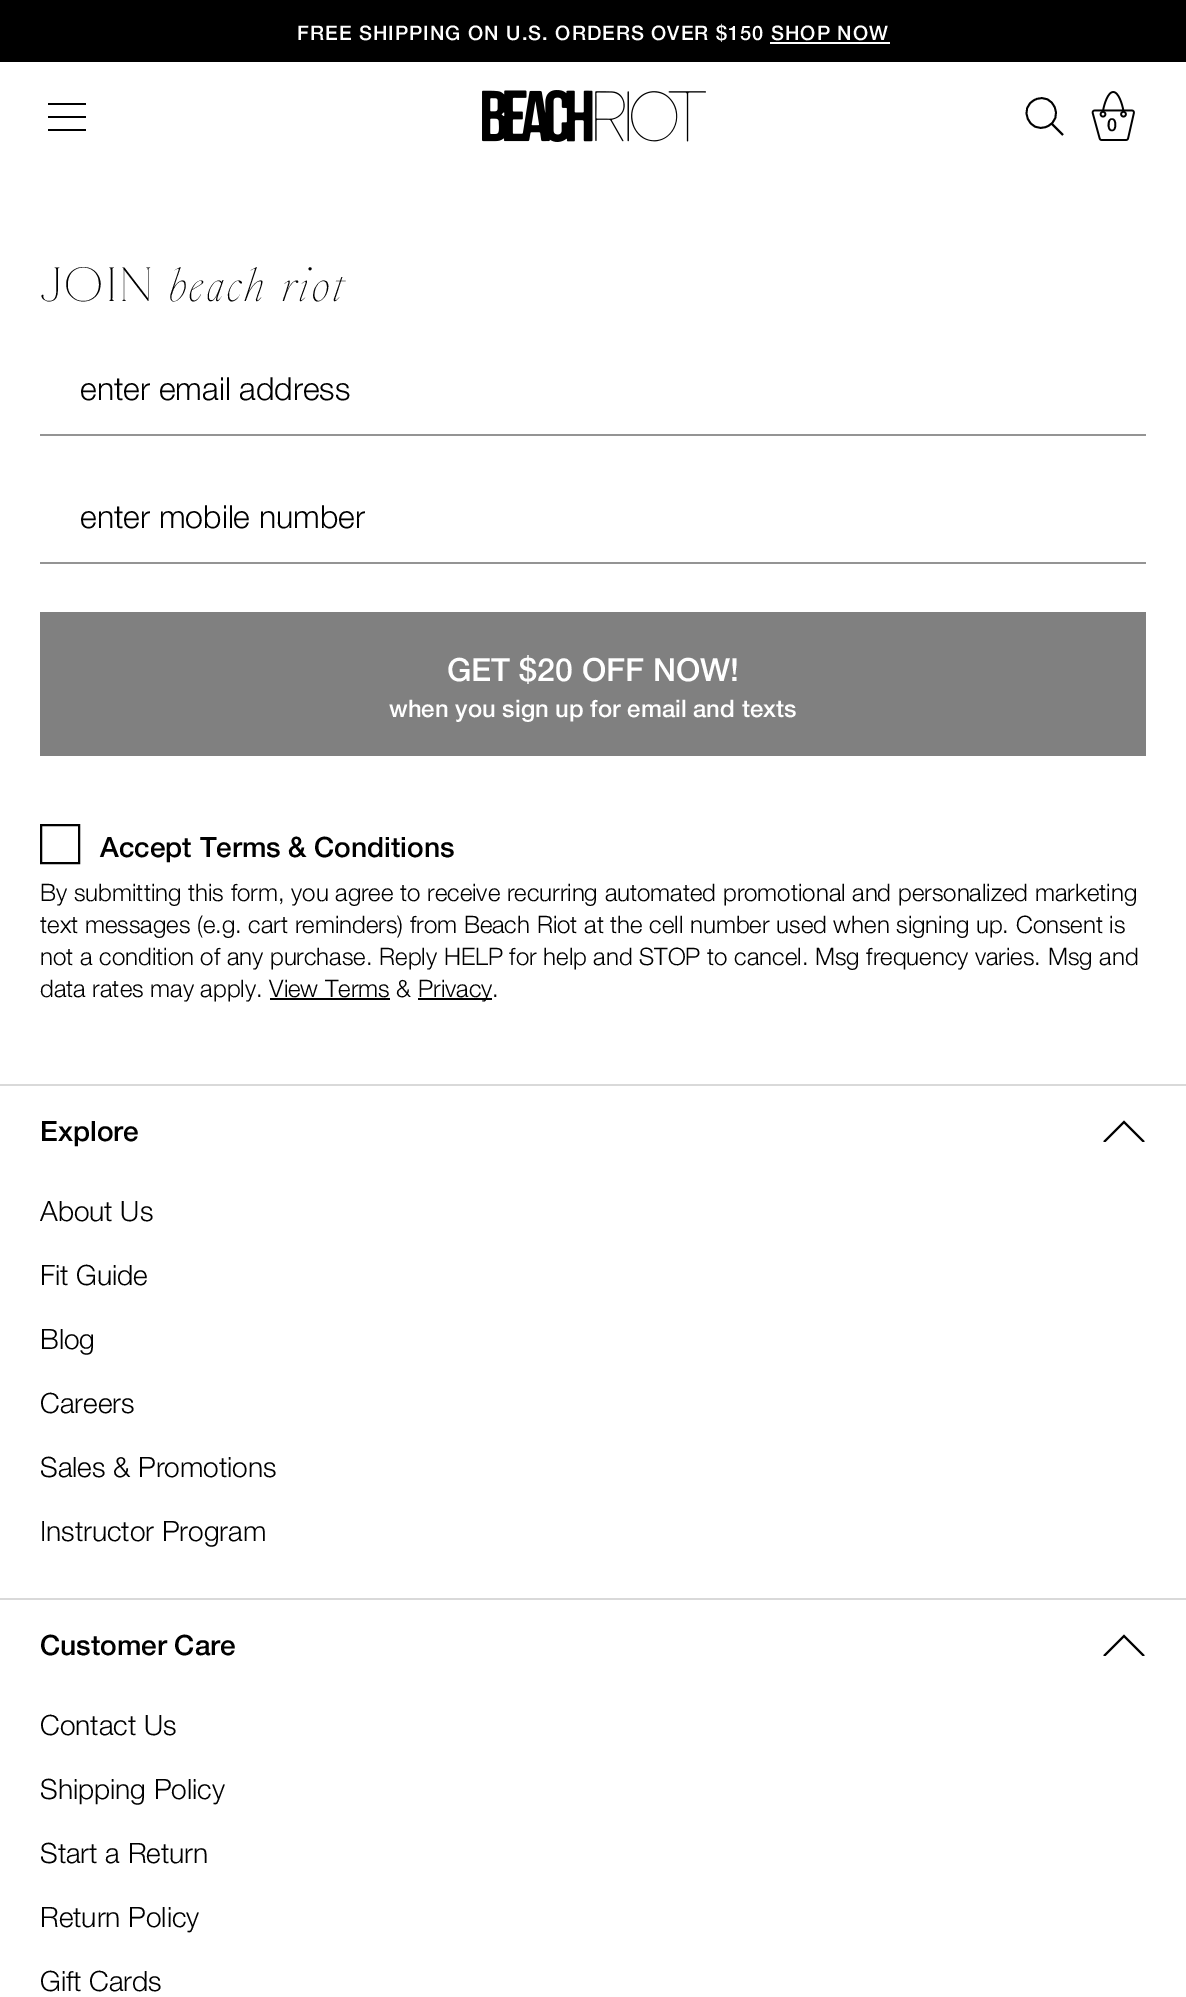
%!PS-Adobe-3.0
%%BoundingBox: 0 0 1186 1997
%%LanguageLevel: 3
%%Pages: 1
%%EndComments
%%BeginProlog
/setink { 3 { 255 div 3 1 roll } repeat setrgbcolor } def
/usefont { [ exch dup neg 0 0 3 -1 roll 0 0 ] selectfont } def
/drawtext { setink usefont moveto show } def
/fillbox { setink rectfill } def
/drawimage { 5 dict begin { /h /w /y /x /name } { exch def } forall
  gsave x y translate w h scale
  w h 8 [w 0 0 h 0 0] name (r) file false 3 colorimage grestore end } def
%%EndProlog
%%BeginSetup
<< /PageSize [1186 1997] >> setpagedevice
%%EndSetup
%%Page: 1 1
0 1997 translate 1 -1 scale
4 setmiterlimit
0 0 1186 1997 255 255 255 fillbox
0 0 1186 62 0 0 0 fillbox
/HelveticaNeue-Medium 20 usefont
255 255 255 setink
297 40 moveto 1 0 (FREE SHIPPING ON U.S. ORDERS OVER $150 SHOP NOW) ashow
770 42 120 2 255 255 255 fillbox
48 103 38 2 0 0 0 fillbox
48 116 38 2 0 0 0 fillbox
48 129 38 2 0 0 0 fillbox
(assets/img1.rgb) 482 90 224 52 drawimage
1.8 setlinewidth
1 setlinejoin
1035.5 99.5 moveto 1053.5 91.5 1065 119 1047 126.5 curveto 1029 134.5 1017.5 107 1035.5 99.5 curveto closepath 1051.5 123.5 moveto 1063 135 lineto stroke
(assets/img2.rgb) 1091 91 44 50 drawimage
(0) 1107 131 /HelveticaNeue-Medium 18 0 0 0 drawtext
/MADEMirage-Thin 48 usefont
40 301 moveto 2.4 0 (JOIN) ashow
/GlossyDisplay-LightItalic 48 usefont
168 301 moveto 2.4 0 (beach riot) ashow
40 434 1106 2 148 148 148 fillbox
(enter email address) 80 400 /HelveticaNeue-Light 32 0 0 0 drawtext
40 562 1106 2 148 148 148 fillbox
(enter mobile number) 80 528 /HelveticaNeue-Light 32 0 0 0 drawtext
40 612 1106 144 128 128 128 fillbox
(GET $20 OFF NOW!) 447 681 /HelveticaNeue-Medium 32 255 255 255 drawtext
(when you sign up for email and texts) 389 717 /HelveticaNeue-Medium 24 255 255 255 drawtext
0 0 0 setink
2 setlinewidth
0 setlinejoin
41 825 38 38 rectstroke
(Accept Terms & Conditions) 100 857 /HelveticaNeue-Medium 28 0 0 0 drawtext
(By submitting this form, you agree to receive recurring automated promotional and personalized marketing) 40 901 /HelveticaNeue-Light 24 0 0 0 drawtext
(text messages \(e.g. cart reminders\) from Beach Riot at the cell number used when signing up. Consent is) 40 933 /HelveticaNeue-Light 24 0 0 0 drawtext
(not a condition of any purchase. Reply HELP for help and STOP to cancel. Msg frequency varies. Msg and) 40 965 /HelveticaNeue-Light 24 0 0 0 drawtext
(data rates may apply. View Terms &) 40 997 /HelveticaNeue-Light 24 0 0 0 drawtext
418 998 74 2 0 0 0 fillbox
(Privacy.) 418 997 /HelveticaNeue-Light 24 0 0 0 drawtext
270 998 120 2 0 0 0 fillbox
0 1084 1186 2 217 217 217 fillbox
(Explore) 40 1141 /HelveticaNeue-Medium 28 0 0 0 drawtext
gsave
1102 1118 44 24 rectclip
1144 1142 moveto 1124 1122 lineto 1104 1142 lineto stroke
grestore
(About Us) 40 1221 /HelveticaNeue-Light 28 0 0 0 drawtext
(Fit Guide) 40 1285 /HelveticaNeue-Light 28 0 0 0 drawtext
(Blog) 40 1349 /HelveticaNeue-Light 28 0 0 0 drawtext
(Careers) 40 1413 /HelveticaNeue-Light 28 0 0 0 drawtext
(Sales & Promotions) 40 1477 /HelveticaNeue-Light 28 0 0 0 drawtext
(Instructor Program) 40 1541 /HelveticaNeue-Light 28 0 0 0 drawtext
0 1598 1186 2 217 217 217 fillbox
(Customer Care) 40 1655 /HelveticaNeue-Medium 28 0 0 0 drawtext
gsave
1102 1632 44 24 rectclip
1144 1656 moveto 1124 1636 lineto 1104 1656 lineto stroke
grestore
(Contact Us) 40 1735 /HelveticaNeue-Light 28 0 0 0 drawtext
(Shipping Policy) 40 1799 /HelveticaNeue-Light 28 0 0 0 drawtext
(Start a Return) 40 1863 /HelveticaNeue-Light 28 0 0 0 drawtext
(Return Policy) 40 1927 /HelveticaNeue-Light 28 0 0 0 drawtext
(Gift Cards) 40 1991 /HelveticaNeue-Light 28 0 0 0 drawtext
showpage
%%EOF
